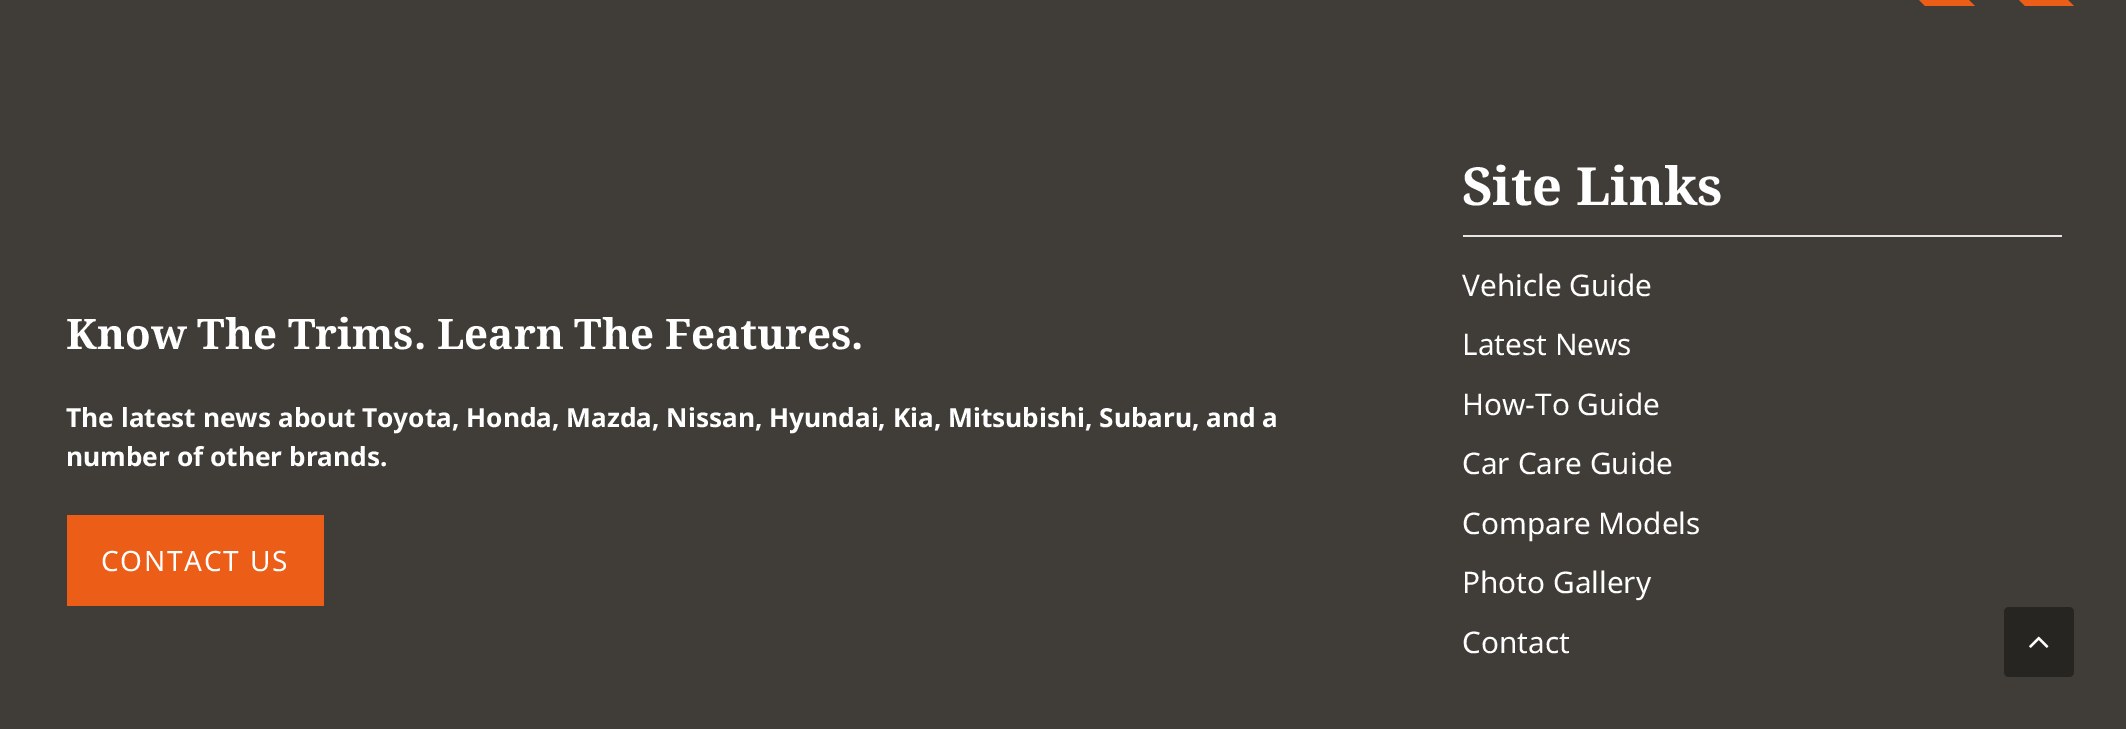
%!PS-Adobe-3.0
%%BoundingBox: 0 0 2126 729
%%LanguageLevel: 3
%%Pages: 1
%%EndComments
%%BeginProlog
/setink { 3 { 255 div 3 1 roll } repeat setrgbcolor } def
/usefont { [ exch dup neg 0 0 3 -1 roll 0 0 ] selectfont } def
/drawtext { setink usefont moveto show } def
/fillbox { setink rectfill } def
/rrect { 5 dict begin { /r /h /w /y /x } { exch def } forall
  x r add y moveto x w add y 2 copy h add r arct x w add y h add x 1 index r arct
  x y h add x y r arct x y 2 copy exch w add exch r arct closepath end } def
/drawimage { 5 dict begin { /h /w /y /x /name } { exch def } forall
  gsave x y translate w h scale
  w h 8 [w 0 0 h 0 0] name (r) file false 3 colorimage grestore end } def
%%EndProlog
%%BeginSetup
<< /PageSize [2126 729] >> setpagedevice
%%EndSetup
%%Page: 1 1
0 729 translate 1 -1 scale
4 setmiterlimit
0 0 2126 729 64 61 57 fillbox
236 94 24 setink
1913 -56 moveto 1975 -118 lineto 1925 -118 lineto 1864 -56 lineto 1925 6 lineto 1975 6 lineto closepath fill
2012 -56 moveto 2074 -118 lineto 2025 -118 lineto 1963 -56 lineto 2025 6 lineto 2074 6 lineto closepath fill
(Know The Trims. Learn The Features.) 66 349 /NotoSerif-Bold 42 255 255 255 drawtext
(The latest news about Toyota, Honda, Mazda, Nissan, Hyundai, Kia, Mitsubishi, Subaru, and a) 66 427 /NotoSans-Bold 26.25 255 255 255 drawtext
(number of other brands.) 66 466 /NotoSans-Bold 26.25 255 255 255 drawtext
67 515 257 91 236 94 24 fillbox
/NotoSans-Regular 28 usefont
255 255 255 setink
101 571 moveto 1.75 0 (CONTACT US) ashow
1463 235 599 2 230 230 230 fillbox
(Site Links) 1462 205 /NotoSerif-Bold 52.5 255 255 255 drawtext
(Vehicle Guide) 1462 296 /NotoSans-Regular 29.75 255 255 255 drawtext
(Latest News) 1462 355 /NotoSans-Regular 29.75 255 255 255 drawtext
(How-To Guide) 1462 415 /NotoSans-Regular 29.75 255 255 255 drawtext
(Car Care Guide) 1462 474 /NotoSans-Regular 29.75 255 255 255 drawtext
(Compare Models) 1462 534 /NotoSans-Regular 29.75 255 255 255 drawtext
(Photo Gallery) 1462 593 /NotoSans-Regular 29.75 255 255 255 drawtext
(Contact) 1462 653 /NotoSans-Regular 29.75 255 255 255 drawtext
38 37 34 setink
2004 607 70 70 5 rrect fill
(assets/img1.rgb) 2029 636 20 12 drawimage
showpage
%%EOF
